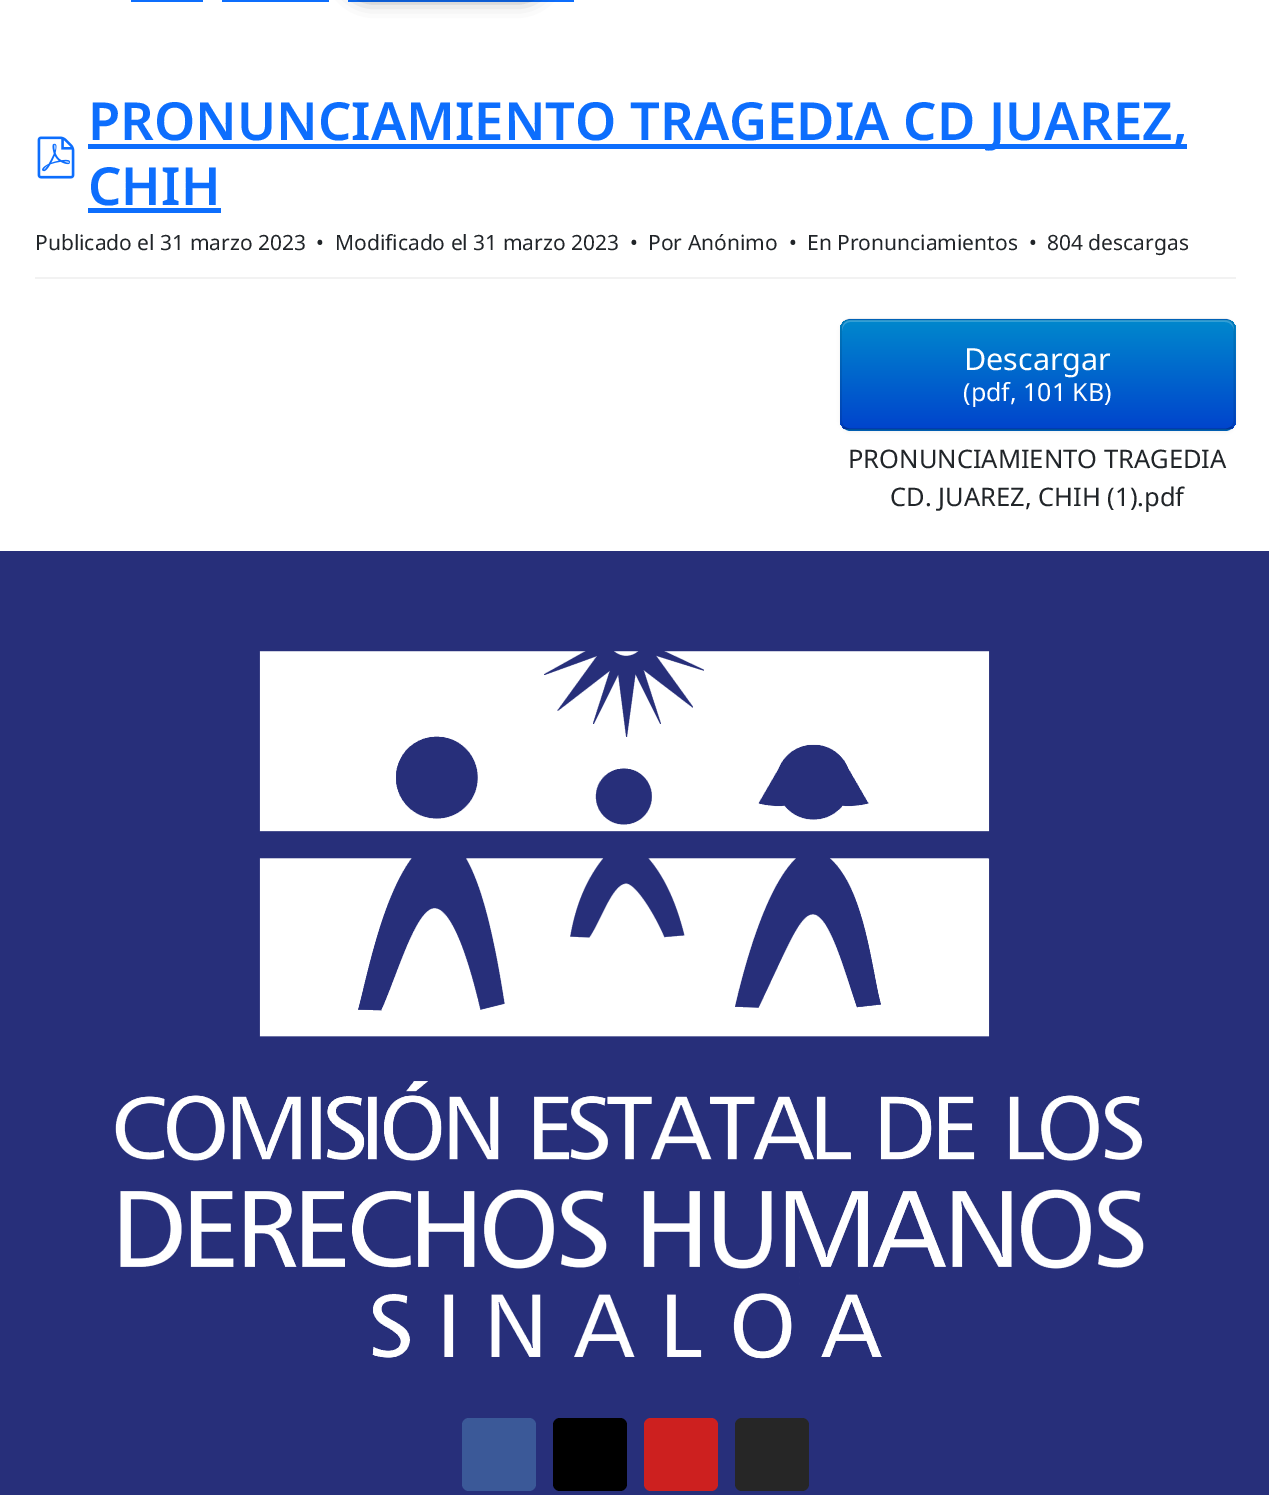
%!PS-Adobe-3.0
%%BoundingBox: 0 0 1269 1495
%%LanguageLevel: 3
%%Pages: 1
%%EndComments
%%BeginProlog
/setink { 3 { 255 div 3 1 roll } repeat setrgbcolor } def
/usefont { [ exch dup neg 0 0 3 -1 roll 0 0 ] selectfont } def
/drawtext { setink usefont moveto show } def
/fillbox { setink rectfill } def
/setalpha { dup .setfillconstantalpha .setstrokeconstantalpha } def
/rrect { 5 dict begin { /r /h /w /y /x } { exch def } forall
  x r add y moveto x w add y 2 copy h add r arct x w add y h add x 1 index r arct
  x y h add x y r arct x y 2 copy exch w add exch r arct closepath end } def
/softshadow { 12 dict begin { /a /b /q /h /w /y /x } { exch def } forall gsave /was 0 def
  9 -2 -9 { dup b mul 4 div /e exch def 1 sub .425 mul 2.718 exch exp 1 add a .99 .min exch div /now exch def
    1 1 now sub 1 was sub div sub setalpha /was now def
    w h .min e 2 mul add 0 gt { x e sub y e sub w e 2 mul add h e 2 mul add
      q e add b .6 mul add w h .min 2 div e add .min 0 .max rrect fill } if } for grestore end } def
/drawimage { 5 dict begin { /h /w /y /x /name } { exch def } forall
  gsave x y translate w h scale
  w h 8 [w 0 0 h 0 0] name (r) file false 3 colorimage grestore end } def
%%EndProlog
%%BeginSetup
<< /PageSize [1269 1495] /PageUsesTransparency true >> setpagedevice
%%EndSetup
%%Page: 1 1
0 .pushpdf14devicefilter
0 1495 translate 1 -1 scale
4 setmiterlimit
0 0 1269 1495 255 255 255 fillbox
222 0 107 2 13 110 253 fillbox
348 0 226 2 13 110 253 fillbox
0 0 0 setink
343 -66 205 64 39 9 0.5 softshadow
131 0 72 2 13 110 253 fillbox
(assets/img1.rgb) 37 136 38 43 drawimage
88 144 1099 5 13 110 253 fillbox
(PRONUNCIAMIENTO TRAGEDIA CD JUAREZ,) 88 140 /NotoSans-SemiBold 52.5 13 110 253 drawtext
(CHIH) 88 205 /NotoSans-SemiBold 52.5 13 110 253 drawtext
88 208 133 5 13 110 253 fillbox
35 277 1201 2 242 242 242 fillbox
(Publicado el 31 marzo 2023) 35 250 /NotoSans-Regular 21 33 37 41 drawtext
(•) 316 250 /NotoSans-Regular 21 33 37 41 drawtext
(Modificado el 31 marzo 2023) 335 250 /NotoSans-Regular 21 33 37 41 drawtext
(•) 630 250 /NotoSans-Regular 21 33 37 41 drawtext
(Por Anónimo) 648 250 /NotoSans-Regular 21 33 37 41 drawtext
(•) 789 250 /NotoSans-Regular 21 33 37 41 drawtext
(En Pronunciamientos) 807 250 /NotoSans-Regular 21 33 37 41 drawtext
(•) 1029 250 /NotoSans-Regular 21 33 37 41 drawtext
(804 descargas) 1047 250 /NotoSans-Regular 21 33 37 41 drawtext
0 0 0 setink
840 320 396 112 11 2 0.05 softshadow
0 109 204 setink
840 319 396 112 11 rrect fill
gsave
840 319 396 112 11 rrect clip newpath
gsave 840 320 moveto 1236 320 lineto 1236 429 lineto 840 429 lineto closepath clip newpath
<< /ShadingType 2 /ColorSpace /DeviceRGB /Coords [1038 320 1038 429] /Extend [true true] /Function << /FunctionType 2 /Domain [0 1] /C0 [0 0.533 0.8] /C1 [0 0.267 0.8] /N 1 >> >> shfill grestore
grestore
0.2 setalpha
255 255 255 setink
850 322 moveto 1225 322 lineto 1230 322 1234 326 1234 331 curveto 1234 329 lineto 1234 324 1230 320 1225 320 curveto 851 320 lineto 846 320 842 324 842 329 curveto 842 331 lineto 842 326 846 322 850 322 curveto closepath fill
0.25 setalpha
0 0 0 setink
1.8 setlinewidth
1232 427 moveto 1230 428.5 1227.5 429.5 1225 429.5 curveto 850.5 429.5 lineto 848 429.5 845.5 428.5 843.5 427 curveto stroke
0.1 setalpha
843.5 427 moveto 842 425 841 422.5 841 420 curveto 841 329 lineto 841 326.5 842 324 843.5 322 curveto 845.5 320.5 848 319.5 850.5 319.5 curveto 1225 319.5 lineto 1227.5 319.5 1230 320.5 1232 322 curveto 1233.5 324 1234.5 326.5 1234.5 329 curveto 1234.5 420 lineto 1234.5 422.5 1233.5 425 1232 427 curveto stroke
1 setalpha
(Descargar) 964 370 /NotoSans-Regular 30.5 255 255 255 drawtext
(\(pdf, 101 KB\)) 963 401 /NotoSans-Regular 25 255 255 255 drawtext
(PRONUNCIAMIENTO TRAGEDIA) 848 468 /NotoSans-Regular 25.5 33 37 41 drawtext
(CD. JUAREZ, CHIH \(1\).pdf) 890 506 /NotoSans-Regular 25.5 33 37 41 drawtext
0 551 1269 944 39 47 122 fillbox
(assets/img2.rgb) 115 651 1029 708 drawimage
59 89 152 setink
462 1418 74 73 7 rrect fill
0 0 0 setink
553 1418 74 73 7 rrect fill
205 32 31 setink
644 1418 74 73 7 rrect fill
38 38 38 setink
735 1418 74 73 7 rrect fill
.poppdf14devicefilter showpage
%%EOF
